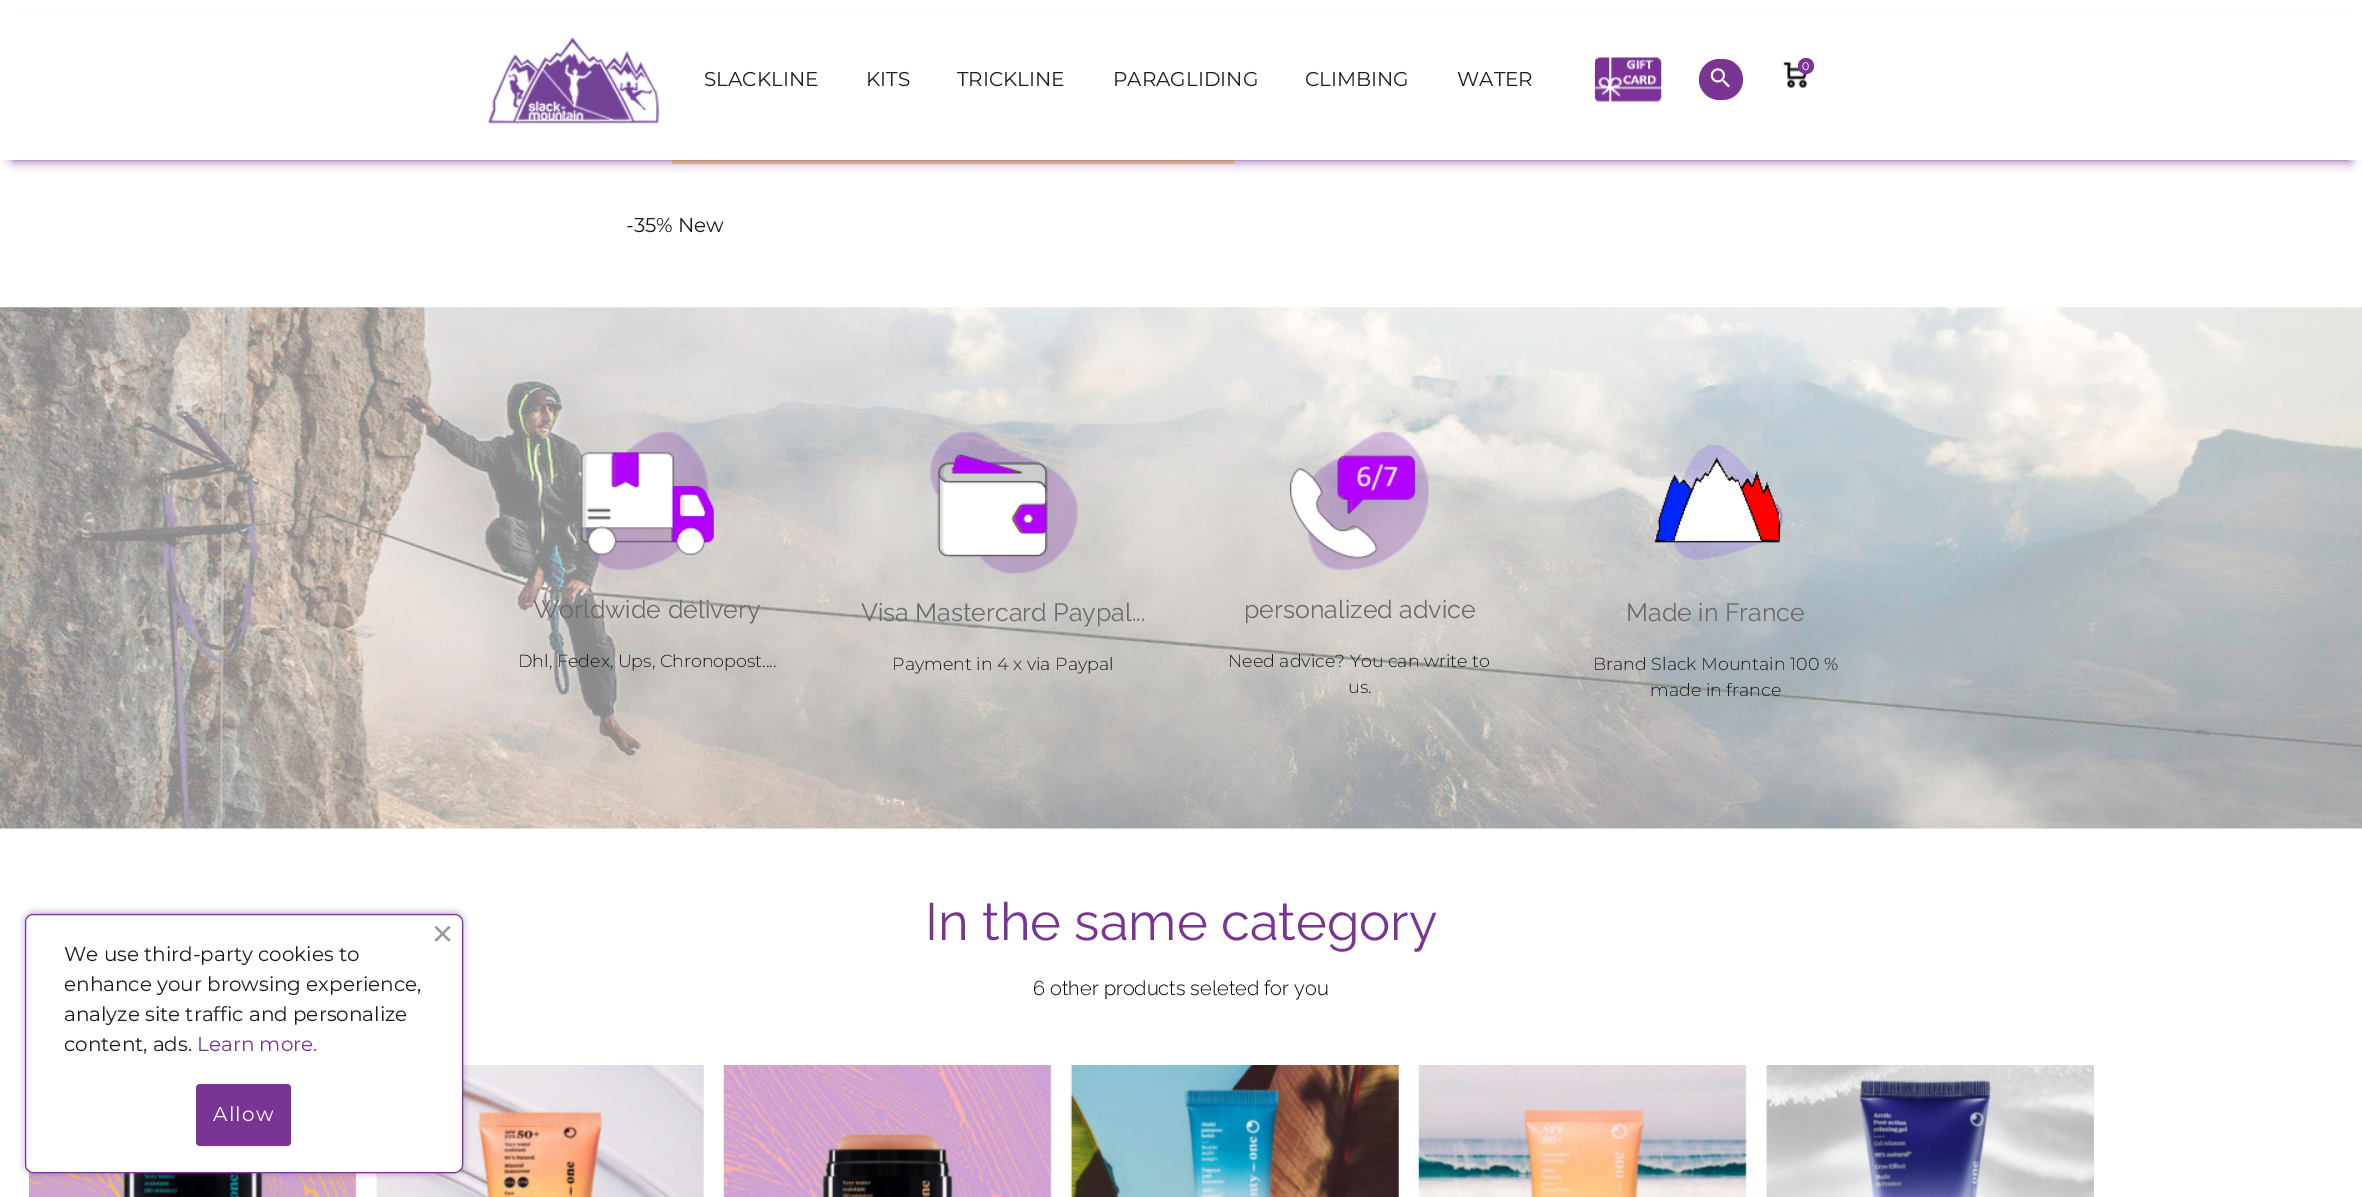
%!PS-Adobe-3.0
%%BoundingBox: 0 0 2362 1197
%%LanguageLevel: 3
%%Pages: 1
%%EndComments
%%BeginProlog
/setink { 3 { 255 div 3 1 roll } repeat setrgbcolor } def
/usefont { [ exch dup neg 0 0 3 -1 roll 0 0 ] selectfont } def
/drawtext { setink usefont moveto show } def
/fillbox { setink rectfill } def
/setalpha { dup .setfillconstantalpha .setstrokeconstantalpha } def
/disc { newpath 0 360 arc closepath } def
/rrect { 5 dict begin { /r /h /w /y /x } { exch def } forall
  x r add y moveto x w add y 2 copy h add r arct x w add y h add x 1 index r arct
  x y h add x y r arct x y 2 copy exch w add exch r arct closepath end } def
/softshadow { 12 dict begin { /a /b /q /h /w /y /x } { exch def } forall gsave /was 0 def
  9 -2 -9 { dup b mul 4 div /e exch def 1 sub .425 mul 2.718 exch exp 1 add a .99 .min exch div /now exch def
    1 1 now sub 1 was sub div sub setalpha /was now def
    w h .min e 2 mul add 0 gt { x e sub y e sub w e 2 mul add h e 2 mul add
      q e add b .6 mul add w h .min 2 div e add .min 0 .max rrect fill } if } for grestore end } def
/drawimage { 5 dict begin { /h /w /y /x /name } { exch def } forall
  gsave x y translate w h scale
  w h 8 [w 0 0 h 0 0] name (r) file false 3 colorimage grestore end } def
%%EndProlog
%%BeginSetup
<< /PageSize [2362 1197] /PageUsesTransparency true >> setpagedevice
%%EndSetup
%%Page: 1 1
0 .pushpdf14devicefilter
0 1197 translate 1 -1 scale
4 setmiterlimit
0 0 2362 1197 255 255 255 fillbox
(assets/img5.rgb) 672 160 563 5 drawimage
121 52 148 setink
13 25 2337 135 0 6 1 softshadow
0 12 2362 148 255 255 255 fillbox
(assets/img1.rgb) 488 37 171 87 drawimage
(assets/img2.rgb) 1595 57 67 45 drawimage
122 52 148 setink
1699 59 44 41 20.5 rrect fill
(assets/img3.rgb) 1710 68 20 20 drawimage
(assets/img4.rgb) 1783 62 25 26 drawimage
1806 66 8 disc fill
(0) 1802 70 /Montserrat-Regular 11 255 255 255 drawtext
(SLACKLINE) 704 86 /Montserrat-Regular 20 29 29 29 drawtext
(KITS) 866 86 /Montserrat-Regular 20 29 29 29 drawtext
(TRICKLINE) 957 86 /Montserrat-Regular 20 29 29 29 drawtext
(PARAGLIDING) 1113 86 /Montserrat-Regular 20 29 29 29 drawtext
(CLIMBING) 1305 86 /Montserrat-Regular 20 29 29 29 drawtext
(WATER) 1457 86 /Montserrat-Regular 20 29 29 29 drawtext
(-35% New) 626 232 /Montserrat-Regular 20 29 29 29 drawtext
(assets/img6.rgb) 0 307 2362 522 drawimage
(assets/img7.rgb) 581 432 133 138 drawimage
(Worldwide delivery) 533 618 /Raleway-Regular 25 107 107 107 drawtext
(Dhl, Fedex, Ups, Chronopost....) 518 667 /Montserrat-Light 17.5 29 29 29 drawtext
(assets/img8.rgb) 930 432 148 142 drawimage
(Visa Mastercard Paypal...) 861 621 /Raleway-Regular 25 107 107 107 drawtext
(Payment in 4 x via Paypal) 892 670 /Montserrat-Light 17.5 29 29 29 drawtext
(assets/img9.rgb) 1290 432 139 138 drawimage
(personalized advice) 1244 618 /Raleway-Regular 25 107 107 107 drawtext
(Need advice? You can write to) 1228 667 /Montserrat-Light 17.5 29 29 29 drawtext
(us.) 1348 693 /Montserrat-Light 17.5 29 29 29 drawtext
(assets/img10.rgb) 1654 444 129 116 drawimage
(Made in France) 1626 621 /Raleway-Regular 25 107 107 107 drawtext
(Brand Slack Mountain 100 %) 1593 670 /Montserrat-Light 17.5 29 29 29 drawtext
(made in france) 1650 696 /Montserrat-Light 17.5 29 29 29 drawtext
(In the same category) 925 940 /Raleway-Regular 52.5 122 52 148 drawtext
(6 other products seleted for you) 1033 995 /Raleway-Light 20 0 0 0 drawtext
(assets/img11.rgb) 29 1171 328 26 drawimage
(assets/img12.rgb) 375 1065 329 132 drawimage
(assets/img13.rgb) 723 1065 329 132 drawimage
(assets/img14.rgb) 1070 1065 329 132 drawimage
(assets/img15.rgb) 1418 1065 329 132 drawimage
(assets/img16.rgb) 1765 1065 329 132 drawimage
122 52 148 setink
28 916 432 254 5 4.5 1 softshadow
255 255 255 setink
25.5 914.5 437 258 7.5 rrect gsave fill grestore
122 52 148 setink
stroke
153 153 153 setink
434.5 940 moveto 448.5 926 lineto 450.5 927.5 lineto 436.5 941.5 lineto closepath fill
436.5 926 moveto 450.5 940 lineto 448.5 941.5 lineto 434.5 927.5 lineto closepath fill
(We use third-party cookies to) 64 961 /Montserrat-Regular 20 29 29 29 drawtext
(enhance your browsing experience,) 64 991 /Montserrat-Regular 20 29 29 29 drawtext
(analyze site traffic and personalize) 64 1021 /Montserrat-Regular 20 29 29 29 drawtext
(content, ads.) 64 1051 /Montserrat-Regular 20 29 29 29 drawtext
(Learn more.) 197 1051 /Montserrat-Regular 20 122 52 148 drawtext
196 1084 95 62 4 rrect fill
255 255 255 setink
213 1121 moveto 1.25 0 (Allow) ashow
.poppdf14devicefilter showpage
%%EOF
